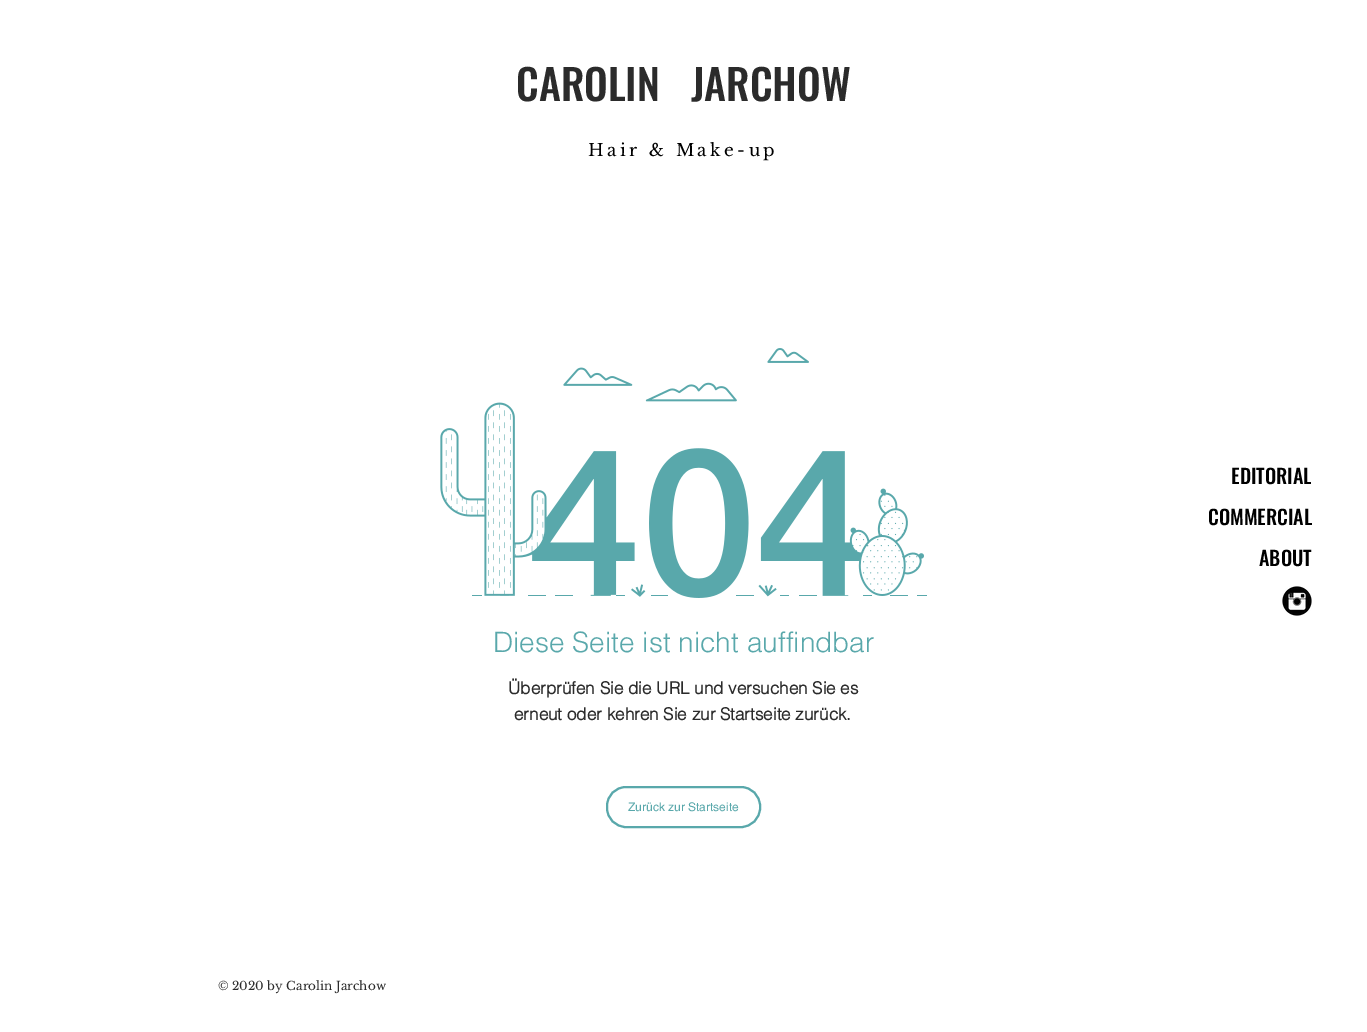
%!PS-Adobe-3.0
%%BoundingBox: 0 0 1367 1032
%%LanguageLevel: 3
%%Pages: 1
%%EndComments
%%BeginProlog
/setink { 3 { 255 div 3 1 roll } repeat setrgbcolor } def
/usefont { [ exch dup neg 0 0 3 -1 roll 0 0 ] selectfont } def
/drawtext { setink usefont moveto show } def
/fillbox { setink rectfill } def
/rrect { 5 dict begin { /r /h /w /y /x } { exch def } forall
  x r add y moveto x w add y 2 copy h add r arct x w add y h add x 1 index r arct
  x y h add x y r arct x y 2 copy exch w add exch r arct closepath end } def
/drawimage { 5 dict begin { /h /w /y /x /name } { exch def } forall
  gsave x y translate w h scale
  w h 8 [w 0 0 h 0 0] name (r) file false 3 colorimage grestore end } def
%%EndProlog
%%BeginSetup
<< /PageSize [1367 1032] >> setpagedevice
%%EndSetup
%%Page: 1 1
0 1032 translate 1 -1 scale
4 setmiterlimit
0 0 1367 1032 255 255 255 fillbox
(CAROLIN   JARCHOW) 516 101 /Oswald-Medium 42 43 43 43 drawtext
/LibreBaskerville-Regular 17 usefont
0 0 0 setink
588 156 moveto 3.4 0 (Hair & Make-up) ashow
(EDITORIAL) 1231 484 /Oswald-Medium 20 0 0 0 drawtext
(COMMERCIAL) 1208 525 /Oswald-Medium 20 0 0 0 drawtext
(ABOUT) 1259 566 /Oswald-Medium 20 0 0 0 drawtext
(assets/img1.rgb) 1282 586 30 30 drawimage
(assets/img2.rgb) 440 348 487 250 drawimage
(Diese Seite ist nicht auffindbar) 493 652 /helvetica-Light 28 89 168 171 drawtext
(Überprüfen Sie die URL und versuchen Sie es) 508 694 /helvetica-Bold 17 43 43 43 drawtext
(erneut oder kehren Sie zur Startseite zurück.) 514 720 /helvetica-Bold 17 43 43 43 drawtext
89 168 171 setink
2 setlinewidth
607 787 153 40 19 rrect stroke
(Zurück zur Startseite) 628 811 /helvetica-Regular 12 89 168 171 drawtext
(© 2020 by Carolin Jarchow) 218 990 /LibreBaskerville-Regular 12 43 43 43 drawtext
showpage
%%EOF
